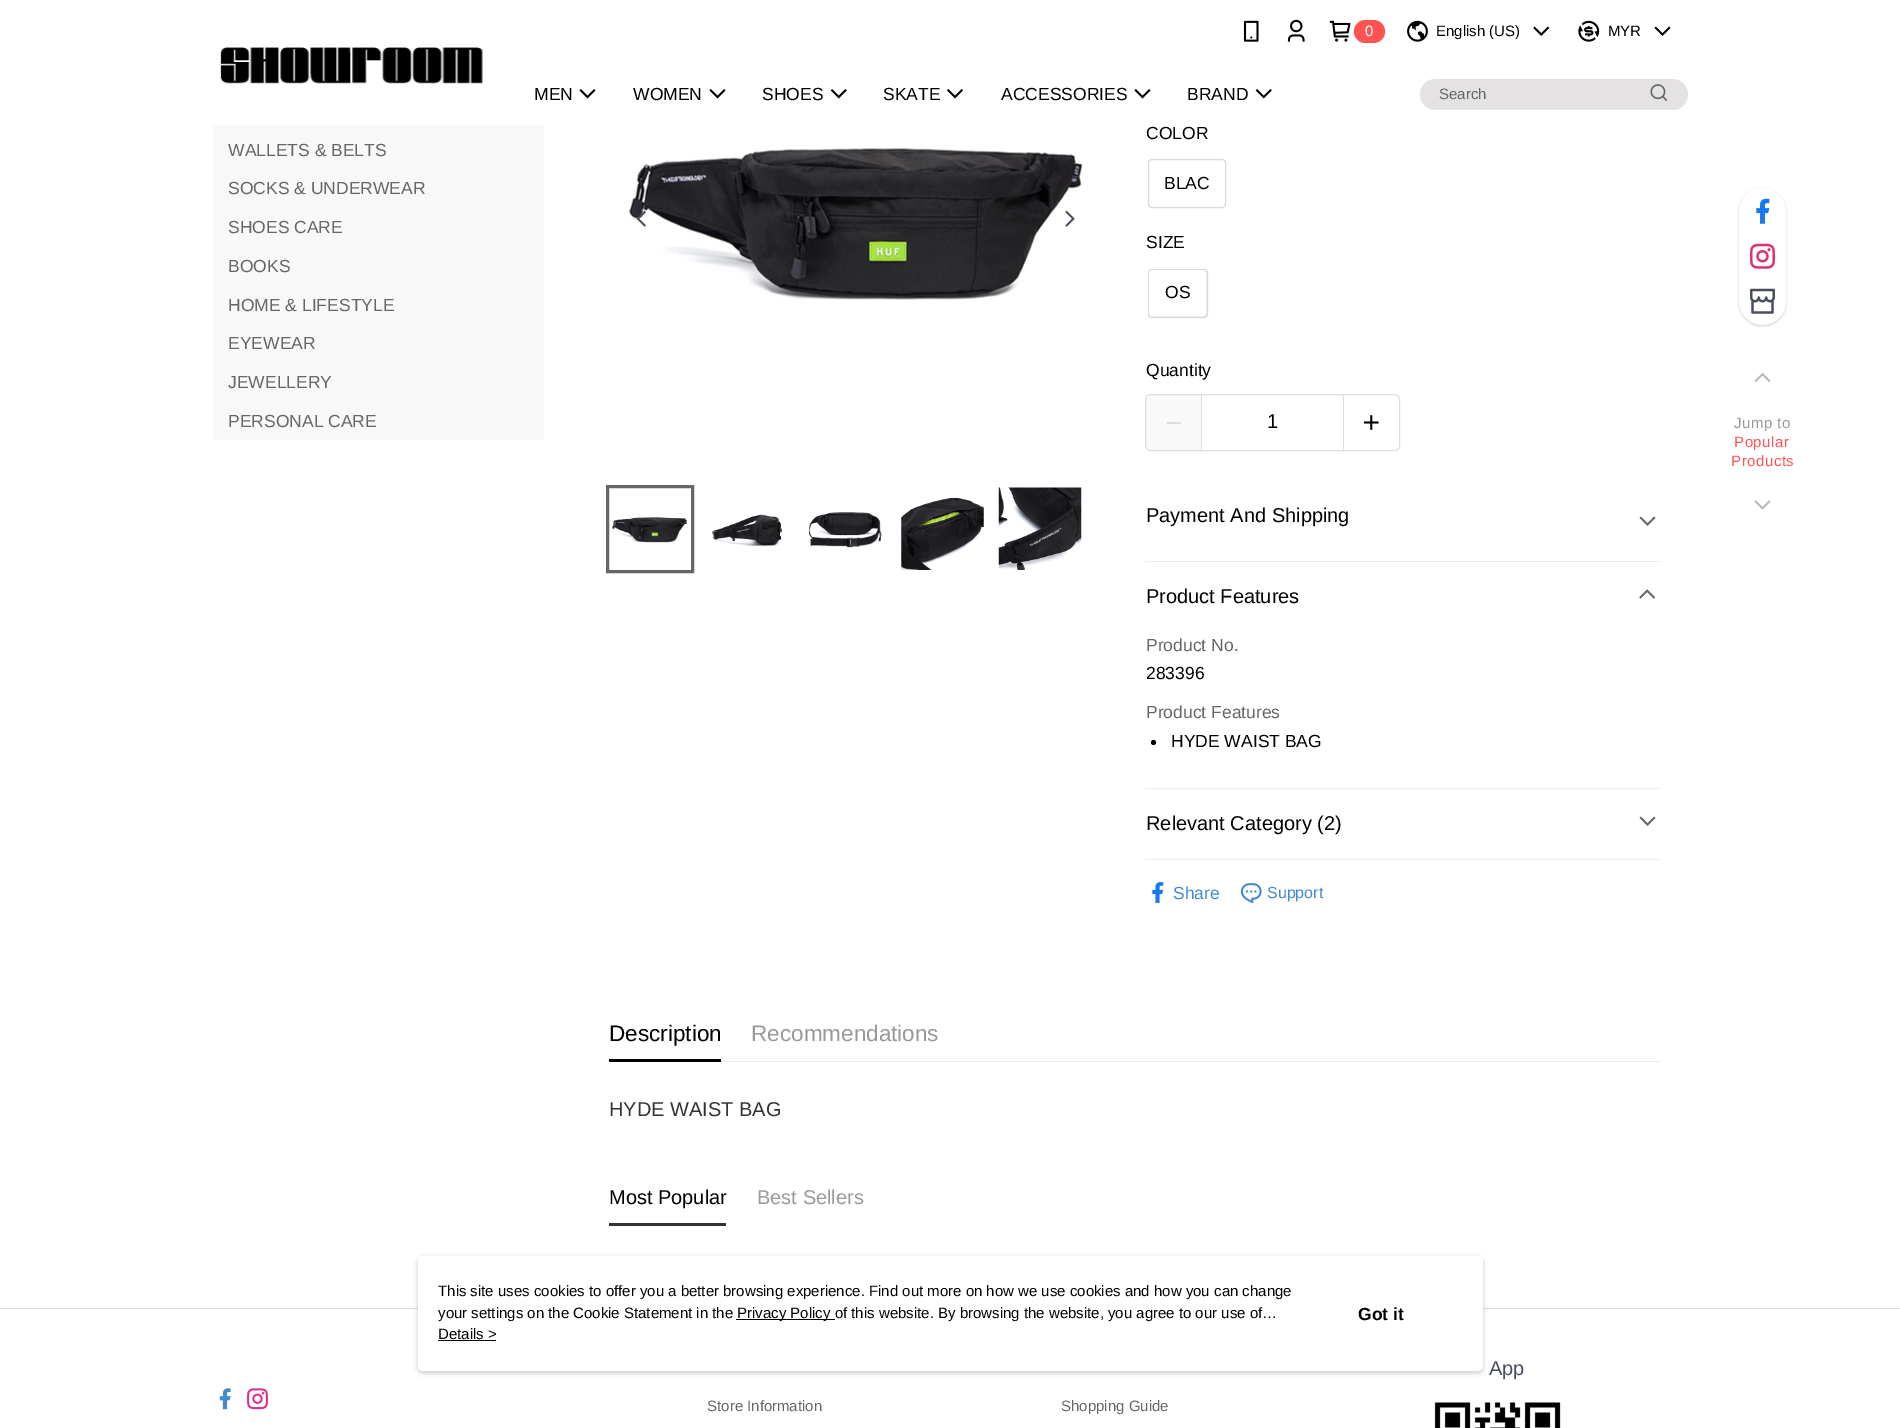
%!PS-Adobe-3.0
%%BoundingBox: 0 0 1900 1428
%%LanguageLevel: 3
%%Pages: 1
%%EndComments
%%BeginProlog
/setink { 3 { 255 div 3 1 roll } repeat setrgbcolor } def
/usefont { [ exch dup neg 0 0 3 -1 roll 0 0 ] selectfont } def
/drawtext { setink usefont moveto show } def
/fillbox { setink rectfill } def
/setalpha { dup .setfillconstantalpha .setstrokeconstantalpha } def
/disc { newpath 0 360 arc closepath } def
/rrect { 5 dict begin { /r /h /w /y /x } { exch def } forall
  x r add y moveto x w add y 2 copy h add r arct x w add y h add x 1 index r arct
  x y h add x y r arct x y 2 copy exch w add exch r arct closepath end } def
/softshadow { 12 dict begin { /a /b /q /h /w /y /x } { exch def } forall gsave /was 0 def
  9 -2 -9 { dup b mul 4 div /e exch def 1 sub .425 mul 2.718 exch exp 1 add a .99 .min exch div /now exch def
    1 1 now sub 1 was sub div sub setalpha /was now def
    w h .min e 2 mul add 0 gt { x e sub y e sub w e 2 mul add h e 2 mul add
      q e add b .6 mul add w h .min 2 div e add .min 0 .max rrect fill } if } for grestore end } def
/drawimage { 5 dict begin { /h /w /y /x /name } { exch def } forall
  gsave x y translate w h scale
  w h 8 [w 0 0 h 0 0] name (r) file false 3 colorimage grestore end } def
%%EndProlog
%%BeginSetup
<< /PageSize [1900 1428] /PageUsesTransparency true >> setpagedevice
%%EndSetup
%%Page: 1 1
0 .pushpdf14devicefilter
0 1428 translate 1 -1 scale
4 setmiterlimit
0 0 1900 1428 255 255 255 fillbox
(assets/img1.rgb) 220 47 263 37 drawimage
(assets/img2.rgb) 1243 20 16 22 drawimage
(assets/img3.rgb) 1287 19 18 23 drawimage
(assets/img4.rgb) 1329 20 22 22 drawimage
255 83 83 setink
1354 20 31 23 11.5 rrect fill
(0) 1365 36 /LiberationSans-Regular 15 255 255 255 drawtext
(assets/img5.rgb) 1407 20 21 22 drawimage
(English \(US\)) 1436 36 /LiberationSans-Regular 15 0 0 0 drawtext
(assets/img6.rgb) 1533 26 17 10 drawimage
(assets/img7.rgb) 1578 20 22 22 drawimage
(MYR) 1608 36 /LiberationSans-Regular 15 0 0 0 drawtext
(assets/img8.rgb) 1654 26 17 10 drawimage
(MEN) 534 100 /LiberationSans-Regular 17.5 0 0 0 drawtext
(assets/img9.rgb) 579 89 17 10 drawimage
(WOMEN) 633 100 /LiberationSans-Regular 17.5 0 0 0 drawtext
(assets/img9.rgb) 709 89 17 10 drawimage
(SHOES) 762 100 /LiberationSans-Regular 17.5 0 0 0 drawtext
(assets/img10.rgb) 830 89 17 10 drawimage
(SKATE) 883 100 /LiberationSans-Regular 17.5 0 0 0 drawtext
(assets/img11.rgb) 947 89 16 10 drawimage
(ACCESSORIES) 1001 100 /LiberationSans-Regular 17.5 0 0 0 drawtext
(assets/img9.rgb) 1134 89 17 10 drawimage
(BRAND) 1187 100 /LiberationSans-Regular 17.5 0 0 0 drawtext
(assets/img10.rgb) 1255 89 17 10 drawimage
228 226 226 setink
1420 79 268 31 15.5 rrect fill
(Search) 1439 99 /LiberationSans-Regular 15 102 102 102 drawtext
(assets/img12.rgb) 1650 84 18 17 drawimage
213 125 331 315 248 248 248 fillbox
(WALLETS & BELTS) 228 156 /LiberationSans-Regular 17.5 102 102 102 drawtext
(SOCKS & UNDERWEAR) 228 194 /LiberationSans-Regular 17.5 102 102 102 drawtext
(SHOES CARE) 228 233 /LiberationSans-Regular 17.5 102 102 102 drawtext
(BOOKS) 228 272 /LiberationSans-Regular 17.5 102 102 102 drawtext
(HOME & LIFESTYLE) 228 311 /LiberationSans-Regular 17.5 102 102 102 drawtext
(EYEWEAR) 228 349 /LiberationSans-Regular 17.5 102 102 102 drawtext
(JEWELLERY) 228 388 /LiberationSans-Regular 17.5 102 102 102 drawtext
(PERSONAL CARE) 228 427 /LiberationSans-Regular 17.5 102 102 102 drawtext
(assets/img13.rgb) 628 148 455 152 drawimage
(assets/img14.rgb) 636 210 10 17 drawimage
(assets/img15.rgb) 1065 210 10 17 drawimage
(assets/img16.rgb) 612 517 76 26 drawimage
3 setlinewidth
607.5 486.5 85 85 rectstroke
(assets/img17.rgb) 712 514 70 33 drawimage
(assets/img18.rgb) 808 512 74 36 drawimage
(assets/img19.rgb) 901 497 83 73 drawimage
(assets/img20.rgb) 998 487 84 83 drawimage
(COLOR) 1146 139 /LiberationSans-Regular 17.5 0 0 0 drawtext
216 216 216 setink
1 setlinewidth
1148.5 159.5 77 48 3.5 rrect stroke
(BLAC) 1164 189 /LiberationSans-Regular 17.5 0 0 0 drawtext
(SIZE) 1146 248 /LiberationSans-Regular 17.5 0 0 0 drawtext
241 241 241 setink
1148.5 269.5 59 48 3.5 rrect gsave fill grestore
216 216 216 setink
stroke
255 255 255 setink
1149 270 57 46 4 rrect fill
(OS) 1165 298 /LiberationSans-Regular 17.5 0 0 0 drawtext
(Quantity) 1146 376 /LiberationSans-Regular 17.5 0 0 0 drawtext
221 221 221 setink
1145.5 394.5 254 56 4.5 rrect stroke
0.4 setalpha
1146 395 55 55 241 241 241 fillbox
1 setalpha
1167 422 14 2 221 221 221 fillbox
1343 395 1 55 221 221 221 fillbox
1201 395 1 55 221 221 221 fillbox
(1) 1267 428 /LiberationSans-Regular 20 0 0 0 drawtext
(assets/img21.rgb) 1363 415 16 15 drawimage
1145 561 515 1 236 239 241 fillbox
(Payment And Shipping) 1146 522 /LiberationSans-Regular 20 0 0 0 drawtext
(assets/img22.rgb) 1639 516 17 10 drawimage
1145 788 515 1 236 239 241 fillbox
(Product Features) 1146 603 /LiberationSans-Regular 20 0 0 0 drawtext
(assets/img23.rgb) 1639 589 17 10 drawimage
(Product No.) 1146 651 /LiberationSans-Regular 17.5 102 102 102 drawtext
(283396) 1146 679 /LiberationSans-Regular 17.5 0 0 0 drawtext
(Product Features) 1146 718 /LiberationSans-Regular 17.5 102 102 102 drawtext
0 0 0 setink
1153.5 742.5 2.5 disc fill
(HYDE WAIST BAG) 1171 747 /LiberationSans-Regular 17.5 0 0 0 drawtext
1145 859 515 1 236 239 241 fillbox
(Relevant Category \(2\)) 1146 830 /LiberationSans-Regular 20 0 0 0 drawtext
(assets/img22.rgb) 1639 816 17 10 drawimage
(assets/img24.rgb) 1152 882 12 21 drawimage
(Share) 1173 899 /LiberationSans-Regular 17.5 66 139 202 drawtext
(assets/img25.rgb) 1240 883 22 21 drawimage
(Support) 1267 898 /LiberationSans-Regular 16 66 139 202 drawtext
721 1061 939 1 236 236 236 fillbox
609 1059 112 3 0 0 0 fillbox
(Description) 609 1041 /LiberationSans-Regular 22.5 0 0 0 drawtext
(Recommendations) 751 1041 /LiberationSans-Regular 22.5 153 153 153 drawtext
(HYDE WAIST BAG) 609 1116 /LiberationSans-Regular 20 51 51 51 drawtext
609 1223 117 3 51 51 51 fillbox
(Most Popular) 609 1204 /LiberationSans-Regular 20 0 0 0 drawtext
(Best Sellers) 757 1204 /LiberationSans-Regular 20 153 153 153 drawtext
gsave
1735 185 moveto 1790 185 lineto 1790 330 lineto 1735 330 lineto closepath 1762.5 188 moveto 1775.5 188 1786 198.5 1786 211.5 curveto 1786 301.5 lineto 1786 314.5 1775.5 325 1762.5 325 curveto 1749.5 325 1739 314.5 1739 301.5 curveto 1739 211.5 lineto 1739 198.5 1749.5 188 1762.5 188 curveto closepath eoclip newpath
0 0 0 setink
1739 189 47 137 23.5 1 0.2 softshadow
grestore
0.9 setalpha
255 255 255 setink
1739.5 188.5 46 136 23 rrect fill
1 setalpha
253 253 253 setink
1739.5 188.5 46 136 23 rrect stroke
(assets/img26.rgb) 1756 198 14 26 drawimage
(assets/img27.rgb) 1750 243 25 26 drawimage
(assets/img28.rgb) 1750 288 25 26 drawimage
(assets/img29.rgb) 1754 372 17 11 drawimage
/LiberationSans-Regular 15 usefont
153 153 153 setink
1734 428 moveto 0.5 0 (Jump to) ashow
255 83 83 setink
1734 447 moveto 0.5 0 (Popular) ashow
1731 466 moveto 0.5 0 (Products) ashow
(assets/img30.rgb) 1754 500 17 10 drawimage
0 1308 1900 1 218 218 218 fillbox
(App) 1489 1375 /LiberationSans-Regular 20 74 78 92 drawtext
(assets/img31.rgb) 1434 1402 127 26 drawimage
(assets/img32.rgb) 219 1388 12 22 drawimage
(assets/img33.rgb) 247 1388 21 22 drawimage
(Store Information) 707 1411 /LiberationSans-Regular 15 102 102 102 drawtext
(Shopping Guide) 1061 1411 /LiberationSans-Regular 15 102 102 102 drawtext
151 151 151 setink
418 1258 1065 115 5 2.5 0.5 softshadow
255 255 255 setink
418 1256 1065 115 5 rrect fill
(This site uses cookies to offer you a better browsing experience. Find out more on how we use cookies and how you can change) 438 1296 /LiberationSans-Regular 15 0 0 0 drawtext
(your settings on the Cookie Statement in the) 438 1318 /LiberationSans-Regular 15 0 0 0 drawtext
736 1319 94 1 0 0 0 fillbox
(Privacy Policy of this website. By browsing the website, you agree to our use of…) 737 1318 /LiberationSans-Regular 15 0 0 0 drawtext
830 1319 5 1 0 0 0 fillbox
(Details >) 438 1339 /LiberationSans-Regular 15 0 0 0 drawtext
438 1340 58 1 0 0 0 fillbox
(Got it) 1358 1320 /LiberationSans-Bold 17.5 0 0 0 drawtext
.poppdf14devicefilter showpage
%%EOF
